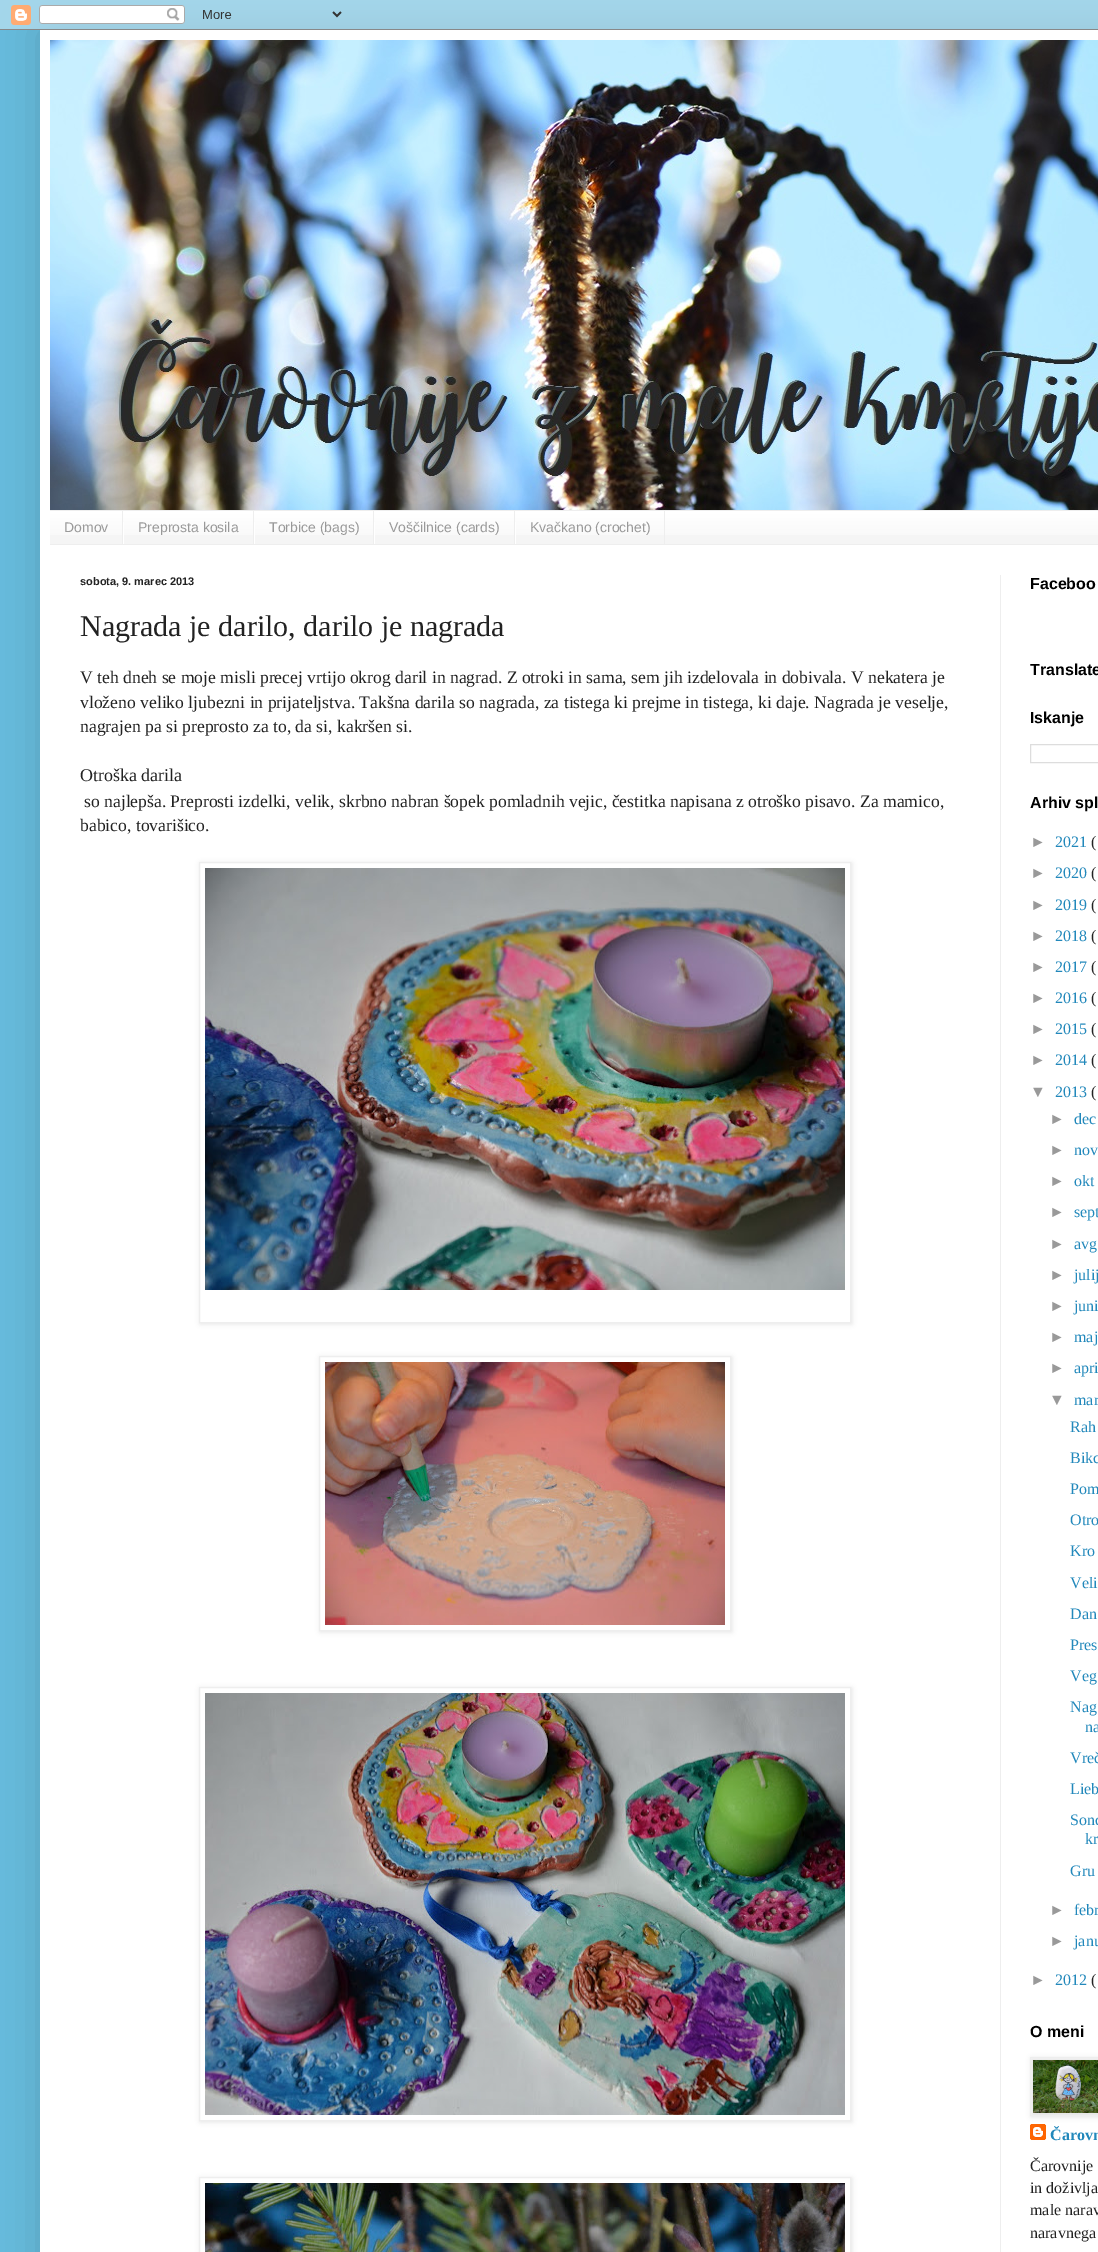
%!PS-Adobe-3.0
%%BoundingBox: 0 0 1098 2252
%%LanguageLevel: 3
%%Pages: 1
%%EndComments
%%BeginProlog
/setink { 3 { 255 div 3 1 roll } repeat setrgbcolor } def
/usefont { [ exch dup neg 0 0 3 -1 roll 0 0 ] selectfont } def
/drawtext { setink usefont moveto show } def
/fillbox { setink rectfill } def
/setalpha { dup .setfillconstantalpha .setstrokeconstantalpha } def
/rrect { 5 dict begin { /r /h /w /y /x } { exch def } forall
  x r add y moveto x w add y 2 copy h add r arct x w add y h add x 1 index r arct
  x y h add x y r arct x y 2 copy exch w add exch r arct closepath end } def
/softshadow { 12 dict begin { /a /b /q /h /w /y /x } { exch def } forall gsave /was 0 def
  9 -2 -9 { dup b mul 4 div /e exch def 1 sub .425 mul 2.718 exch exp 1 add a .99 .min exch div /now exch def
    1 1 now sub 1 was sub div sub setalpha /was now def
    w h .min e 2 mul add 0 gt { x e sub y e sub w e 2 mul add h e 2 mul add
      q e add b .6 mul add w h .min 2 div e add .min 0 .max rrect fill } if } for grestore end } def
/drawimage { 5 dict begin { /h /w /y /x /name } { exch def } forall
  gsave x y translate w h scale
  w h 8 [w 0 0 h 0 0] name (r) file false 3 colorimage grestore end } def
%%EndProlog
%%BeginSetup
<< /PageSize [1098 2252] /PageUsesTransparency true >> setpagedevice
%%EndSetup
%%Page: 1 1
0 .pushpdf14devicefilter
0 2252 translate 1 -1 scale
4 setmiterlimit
0 0 1098 2252 102 187 221 fillbox
0 0 0 setink
40 30 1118 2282 0 20 0.15 softshadow
(assets/img1.rgb) 0 0 1098 30 drawimage
40 30 1058 2222 255 255 255 fillbox
(assets/img2.rgb) 50 40 1048 470 drawimage
50 512 1048 32 245 245 245 fillbox
(assets/img3.rgb) 50 511 1048 24 drawimage
50 510 1048 1 238 238 238 fillbox
50 544 1048 1 238 238 238 fillbox
122 511 1 33 238 238 238 fillbox
(Domov) 64 532 /LiberationSans-Regular 14 153 153 153 drawtext
253 511 1 33 238 238 238 fillbox
123 522 1 22 255 255 255 fillbox
(Preprosta kosila) 138 532 /LiberationSans-Regular 14 153 153 153 drawtext
373 511 1 33 238 238 238 fillbox
254 522 1 22 255 255 255 fillbox
(Torbice \(bags\)) 269 532 /LiberationSans-Regular 14 153 153 153 drawtext
514 511 1 33 238 238 238 fillbox
374 522 1 22 255 255 255 fillbox
(Voščilnice \(cards\)) 389 532 /LiberationSans-Regular 14 153 153 153 drawtext
664 511 1 33 238 238 238 fillbox
515 522 1 22 255 255 255 fillbox
(Kvačkano \(crochet\)) 530 532 /LiberationSans-Regular 14 153 153 153 drawtext
1000 575 1 1677 238 238 238 fillbox
(sobota, 9. marec 2013) 80 585 /LiberationSans-Bold 11 34 34 34 drawtext
(Nagrada je darilo, darilo je nagrada) 80 636 /LiberationSerif-Regular 30 34 34 34 drawtext
(V teh dneh se moje misli precej vrtijo okrog daril in nagrad. Z otroki in sama, sem jih izdelovala in dobivala. V nekatera je) 80 683 /LiberationSerif-Regular 17.6 34 34 34 drawtext
(vloženo veliko ljubezni in prijateljstva. Takšna darila so nagrada, za tistega ki prejme in tistega, ki daje. Nagrada je veselje,) 80 708 /LiberationSerif-Regular 17.6 34 34 34 drawtext
(nagrajen pa si preprosto za to, da si, kakršen si.) 80 732 /LiberationSerif-Regular 17.6 34 34 34 drawtext
(Otroška darila) 80 781 /LiberationSerif-Regular 18 34 34 34 drawtext
(so najlepša. Preprosti izdelki, velik, skrbno nabran šopek pomladnih vejic, čestitka napisana z otroško pisavo. Za mamico,) 84 807 /LiberationSerif-Regular 17.6 34 34 34 drawtext
(babico, tovarišico.) 80 831 /LiberationSerif-Regular 17.6 34 34 34 drawtext
gsave
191 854 moveto 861 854 lineto 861 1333 lineto 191 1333 lineto closepath 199 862 moveto 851 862 lineto 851 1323 lineto 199 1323 lineto closepath eoclip newpath
0 0 0 setink
200 863 652 461 0 2.5 0.1 softshadow
grestore
238 238 238 setink
199.5 862.5 651 460 rectstroke
(assets/img4.rgb) 205 868 640 422 drawimage
gsave
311 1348 moveto 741 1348 lineto 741 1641 lineto 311 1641 lineto closepath 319 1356 moveto 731 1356 lineto 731 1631 lineto 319 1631 lineto closepath eoclip newpath
0 0 0 setink
320 1357 412 275 0 2.5 0.1 softshadow
grestore
319.5 1356.5 411 274 rectstroke
(assets/img5.rgb) 325 1362 400 263 drawimage
gsave
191 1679 moveto 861 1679 lineto 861 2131 lineto 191 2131 lineto closepath 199 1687 moveto 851 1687 lineto 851 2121 lineto 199 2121 lineto closepath eoclip newpath
0 0 0 setink
200 1688 652 434 0 2.5 0.1 softshadow
grestore
199.5 1687.5 651 433 rectstroke
(assets/img6.rgb) 205 1693 640 422 drawimage
gsave
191 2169 moveto 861 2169 lineto 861 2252 lineto 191 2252 lineto closepath 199 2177 moveto 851 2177 lineto 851 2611 lineto 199 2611 lineto closepath eoclip newpath
0 0 0 setink
200 2178 652 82 0 2.5 0.1 softshadow
grestore
199.5 2177.5 651 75 rectstroke
(assets/img7.rgb) 205 2183 640 69 drawimage
(Faceboo) 1030 589 /LiberationSans-Bold 16 0 0 0 drawtext
(Translate) 1030 675 /LiberationSans-Bold 16 0 0 0 drawtext
(Iskanje) 1030 723 /LiberationSans-Bold 16 0 0 0 drawtext
221 221 221 setink
1030.5 744.5 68 18 rectstroke
(Arhiv spl) 1030 808 /LiberationSans-Bold 16 0 0 0 drawtext
(►) 1030 847 /LiberationSans-Regular 16 153 153 153 drawtext
(2021) 1055 847 /LiberationSerif-Regular 16 34 136 187 drawtext
(\() 1091 847 /LiberationSerif-Regular 16 34 34 34 drawtext
(►) 1030 878 /LiberationSans-Regular 16 153 153 153 drawtext
(2020) 1055 878 /LiberationSerif-Regular 16 34 136 187 drawtext
(\() 1091 878 /LiberationSerif-Regular 16 34 34 34 drawtext
(►) 1030 910 /LiberationSans-Regular 16 153 153 153 drawtext
(2019) 1055 910 /LiberationSerif-Regular 16 34 136 187 drawtext
(\() 1091 910 /LiberationSerif-Regular 16 34 34 34 drawtext
(►) 1030 941 /LiberationSans-Regular 16 153 153 153 drawtext
(2018) 1055 941 /LiberationSerif-Regular 16 34 136 187 drawtext
(\() 1091 941 /LiberationSerif-Regular 16 34 34 34 drawtext
(►) 1030 972 /LiberationSans-Regular 16 153 153 153 drawtext
(2017) 1055 972 /LiberationSerif-Regular 16 34 136 187 drawtext
(\() 1091 972 /LiberationSerif-Regular 16 34 34 34 drawtext
(►) 1030 1003 /LiberationSans-Regular 16 153 153 153 drawtext
(2016) 1055 1003 /LiberationSerif-Regular 16 34 136 187 drawtext
(\() 1091 1003 /LiberationSerif-Regular 16 34 34 34 drawtext
(►) 1030 1034 /LiberationSans-Regular 16 153 153 153 drawtext
(2015) 1055 1034 /LiberationSerif-Regular 16 34 136 187 drawtext
(\() 1091 1034 /LiberationSerif-Regular 16 34 34 34 drawtext
(►) 1030 1065 /LiberationSans-Regular 16 153 153 153 drawtext
(2014) 1055 1065 /LiberationSerif-Regular 16 34 136 187 drawtext
(\() 1091 1065 /LiberationSerif-Regular 16 34 34 34 drawtext
(▼) 1030 1097 /LiberationSans-Regular 16 153 153 153 drawtext
(2013) 1055 1097 /LiberationSerif-Regular 16 34 136 187 drawtext
(\() 1091 1097 /LiberationSerif-Regular 16 34 34 34 drawtext
(►) 1049 1124 /LiberationSans-Regular 16 153 153 153 drawtext
(dec) 1074 1124 /LiberationSerif-Regular 16 34 136 187 drawtext
(►) 1049 1155 /LiberationSans-Regular 16 153 153 153 drawtext
(nov) 1074 1155 /LiberationSerif-Regular 16 34 136 187 drawtext
(►) 1049 1186 /LiberationSans-Regular 16 153 153 153 drawtext
(okt) 1074 1186 /LiberationSerif-Regular 16 34 136 187 drawtext
(►) 1049 1217 /LiberationSans-Regular 16 153 153 153 drawtext
(sept) 1074 1217 /LiberationSerif-Regular 16 34 136 187 drawtext
(►) 1049 1249 /LiberationSans-Regular 16 153 153 153 drawtext
(avg) 1074 1249 /LiberationSerif-Regular 16 34 136 187 drawtext
(►) 1049 1280 /LiberationSans-Regular 16 153 153 153 drawtext
(julij) 1074 1280 /LiberationSerif-Regular 16 34 136 187 drawtext
(►) 1049 1311 /LiberationSans-Regular 16 153 153 153 drawtext
(juni) 1074 1311 /LiberationSerif-Regular 16 34 136 187 drawtext
(►) 1049 1342 /LiberationSans-Regular 16 153 153 153 drawtext
(maj) 1074 1342 /LiberationSerif-Regular 16 34 136 187 drawtext
(►) 1049 1373 /LiberationSans-Regular 16 153 153 153 drawtext
(apri) 1074 1373 /LiberationSerif-Regular 16 34 136 187 drawtext
(▼) 1049 1405 /LiberationSans-Regular 16 153 153 153 drawtext
(mar) 1074 1405 /LiberationSerif-Regular 16 34 136 187 drawtext
(Rah) 1070 1432 /LiberationSerif-Regular 16 34 136 187 drawtext
(Bikc) 1070 1463 /LiberationSerif-Regular 16 34 136 187 drawtext
(Pom) 1070 1494 /LiberationSerif-Regular 16 34 136 187 drawtext
(Otro) 1070 1525 /LiberationSerif-Regular 16 34 136 187 drawtext
(Kro) 1070 1556 /LiberationSerif-Regular 16 34 136 187 drawtext
(Veli) 1070 1588 /LiberationSerif-Regular 16 34 136 187 drawtext
(Dan) 1070 1619 /LiberationSerif-Regular 16 34 136 187 drawtext
(Pres) 1070 1650 /LiberationSerif-Regular 16 34 136 187 drawtext
(Veg) 1070 1681 /LiberationSerif-Regular 16 34 136 187 drawtext
(Nag) 1070 1712 /LiberationSerif-Regular 16 34 136 187 drawtext
(na) 1085 1732 /LiberationSerif-Regular 16 34 136 187 drawtext
(Vreč) 1070 1763 /LiberationSerif-Regular 16 34 136 187 drawtext
(Lieb) 1070 1794 /LiberationSerif-Regular 16 34 136 187 drawtext
(Sonc) 1070 1825 /LiberationSerif-Regular 16 34 136 187 drawtext
(kr) 1085 1844 /LiberationSerif-Regular 16 34 136 187 drawtext
(Gru) 1070 1876 /LiberationSerif-Regular 16 34 136 187 drawtext
(►) 1049 1915 /LiberationSans-Regular 16 153 153 153 drawtext
(febr) 1074 1915 /LiberationSerif-Regular 16 34 136 187 drawtext
(►) 1049 1946 /LiberationSans-Regular 16 153 153 153 drawtext
(janu) 1074 1946 /LiberationSerif-Regular 16 34 136 187 drawtext
(►) 1030 1985 /LiberationSans-Regular 16 153 153 153 drawtext
(2012) 1055 1985 /LiberationSerif-Regular 16 34 136 187 drawtext
(\() 1091 1985 /LiberationSerif-Regular 16 34 34 34 drawtext
(O meni) 1030 2037 /LiberationSans-Bold 16 0 0 0 drawtext
(assets/img9.rgb) 1030 2124 16 16 drawimage
1031 2058 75 59 0 2.5 0.1 softshadow
238 238 238 setink
1030.5 2057.5 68 58 rectstroke
(assets/img8.rgb) 1033 2060 65 53 drawimage
(Čarovn) 1050 2140 /LiberationSerif-Bold 16 34 136 187 drawtext
(Čarovnije) 1030 2171 /LiberationSerif-Regular 16 34 34 34 drawtext
(in doživlja) 1030 2193 /LiberationSerif-Regular 16 34 34 34 drawtext
(male narav) 1030 2215 /LiberationSerif-Regular 16 34 34 34 drawtext
(naravnega) 1030 2238 /LiberationSerif-Regular 16 34 34 34 drawtext
.poppdf14devicefilter showpage
%%EOF
